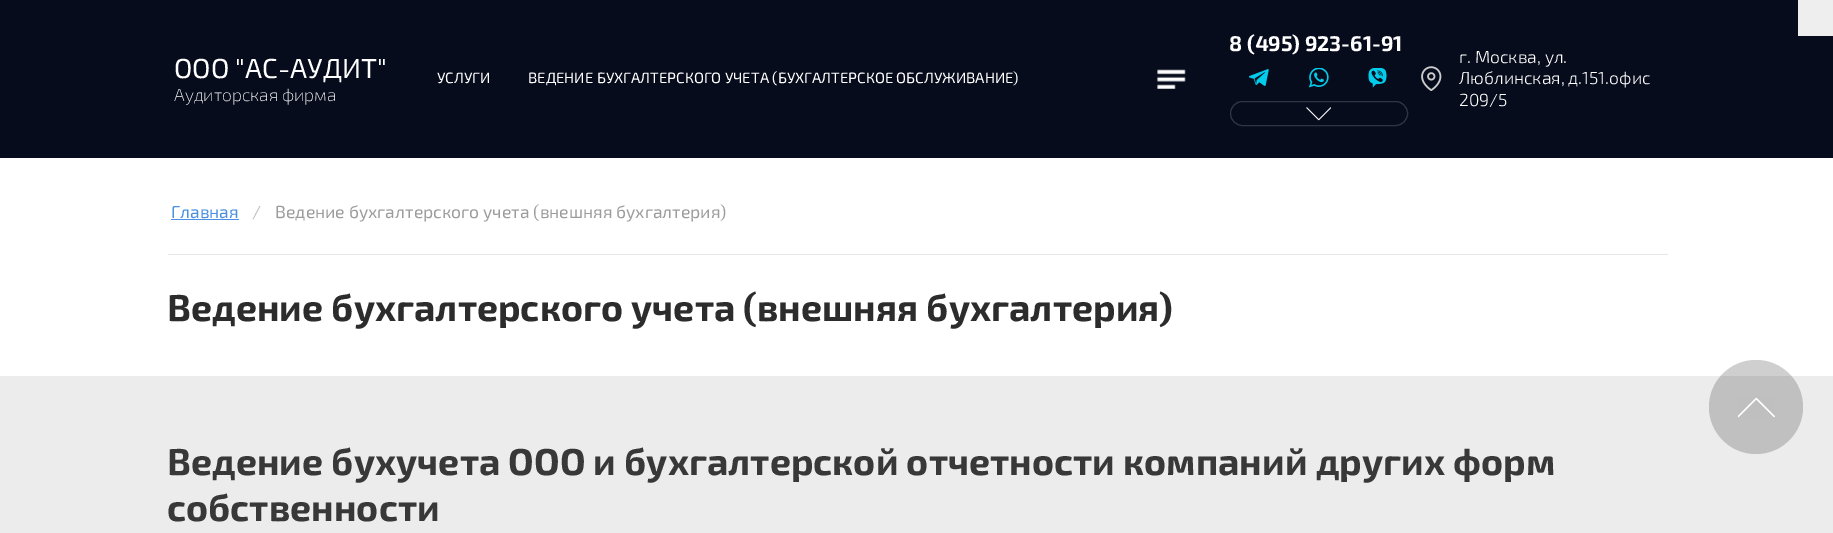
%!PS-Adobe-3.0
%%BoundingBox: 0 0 1833 533
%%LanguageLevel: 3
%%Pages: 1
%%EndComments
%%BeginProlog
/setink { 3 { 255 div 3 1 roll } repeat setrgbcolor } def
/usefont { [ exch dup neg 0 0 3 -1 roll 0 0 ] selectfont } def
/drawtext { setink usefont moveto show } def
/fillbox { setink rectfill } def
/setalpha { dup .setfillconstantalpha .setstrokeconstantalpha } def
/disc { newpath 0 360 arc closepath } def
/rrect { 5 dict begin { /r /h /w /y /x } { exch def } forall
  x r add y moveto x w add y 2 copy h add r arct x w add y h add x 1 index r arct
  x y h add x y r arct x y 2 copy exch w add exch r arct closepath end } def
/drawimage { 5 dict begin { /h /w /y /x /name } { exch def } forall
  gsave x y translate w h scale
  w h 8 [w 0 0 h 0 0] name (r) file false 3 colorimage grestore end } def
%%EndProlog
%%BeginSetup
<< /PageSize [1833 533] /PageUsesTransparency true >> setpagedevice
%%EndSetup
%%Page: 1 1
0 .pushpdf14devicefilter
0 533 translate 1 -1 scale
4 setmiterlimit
0 0 1833 533 255 255 255 fillbox
0 0 1833 158 7 12 28 fillbox
1798 0 35 36 238 238 238 fillbox
(ООО "АС-АУДИТ") 174 78 /Exo2-Regular 27.5 255 255 255 drawtext
(Аудиторская фирма) 174 101 /Exo2-ExtraLight 17.5 255 255 255 drawtext
(УСЛУГИ) 437 83 /Exo2-Regular 15 255 255 255 drawtext
(ВЕДЕНИЕ БУХГАЛТЕРСКОГО УЧЕТА \(БУХГАЛТЕРСКОЕ ОБСЛУЖИВАНИЕ\)) 528 83 /Exo2-Regular 15 255 255 255 drawtext
(assets/img1.rgb) 1157 69 29 20 drawimage
(8 \(495\) 923-61-91) 1229 51 /Exo2-Bold 21.25 255 255 255 drawtext
(assets/img2.rgb) 1249 69 20 17 drawimage
(assets/img3.rgb) 1309 68 20 20 drawimage
(assets/img4.rgb) 1368 68 19 20 drawimage
49 53 67 setink
1230.5 101.5 177 24 12 rrect stroke
(assets/img5.rgb) 1306 107 25 14 drawimage
(assets/img6.rgb) 1421 66 21 25 drawimage
(г. Москва, ул.) 1459 63 /Exo2-Light 17.5 255 255 255 drawtext
(Люблинская, д.151.офис) 1459 84 /Exo2-Light 17.5 255 255 255 drawtext
(209/5) 1459 106 /Exo2-Light 17.5 255 255 255 drawtext
168 254 1500 1 230 230 230 fillbox
(Главная) 171 218 /Exo2-Regular 17.5 74 144 226 drawtext
171 219 68 1 74 144 226 fillbox
(/) 252 218 /Exo2-Regular 17.5 192 192 192 drawtext
(Ведение бухгалтерского учета \(внешняя бухгалтерия\)) 275 218 /Exo2-Regular 17.5 156 156 156 drawtext
(Ведение бухгалтерского учета \(внешняя бухгалтерия\)) 167 321 /Exo2-Bold 37.5 44 44 44 drawtext
0 376 1833 157 236 236 236 fillbox
0.19 setalpha
0 0 0 setink
1756 407 47 disc fill
1 setalpha
(assets/img7.rgb) 1738 397 37 21 drawimage
(Ведение бухучета ООО и бухгалтерской отчетности компаний других форм) 167 475 /Exo2-Bold 37.5 56 56 56 drawtext
(собственности) 167 521 /Exo2-Bold 37.5 56 56 56 drawtext
.poppdf14devicefilter showpage
%%EOF
